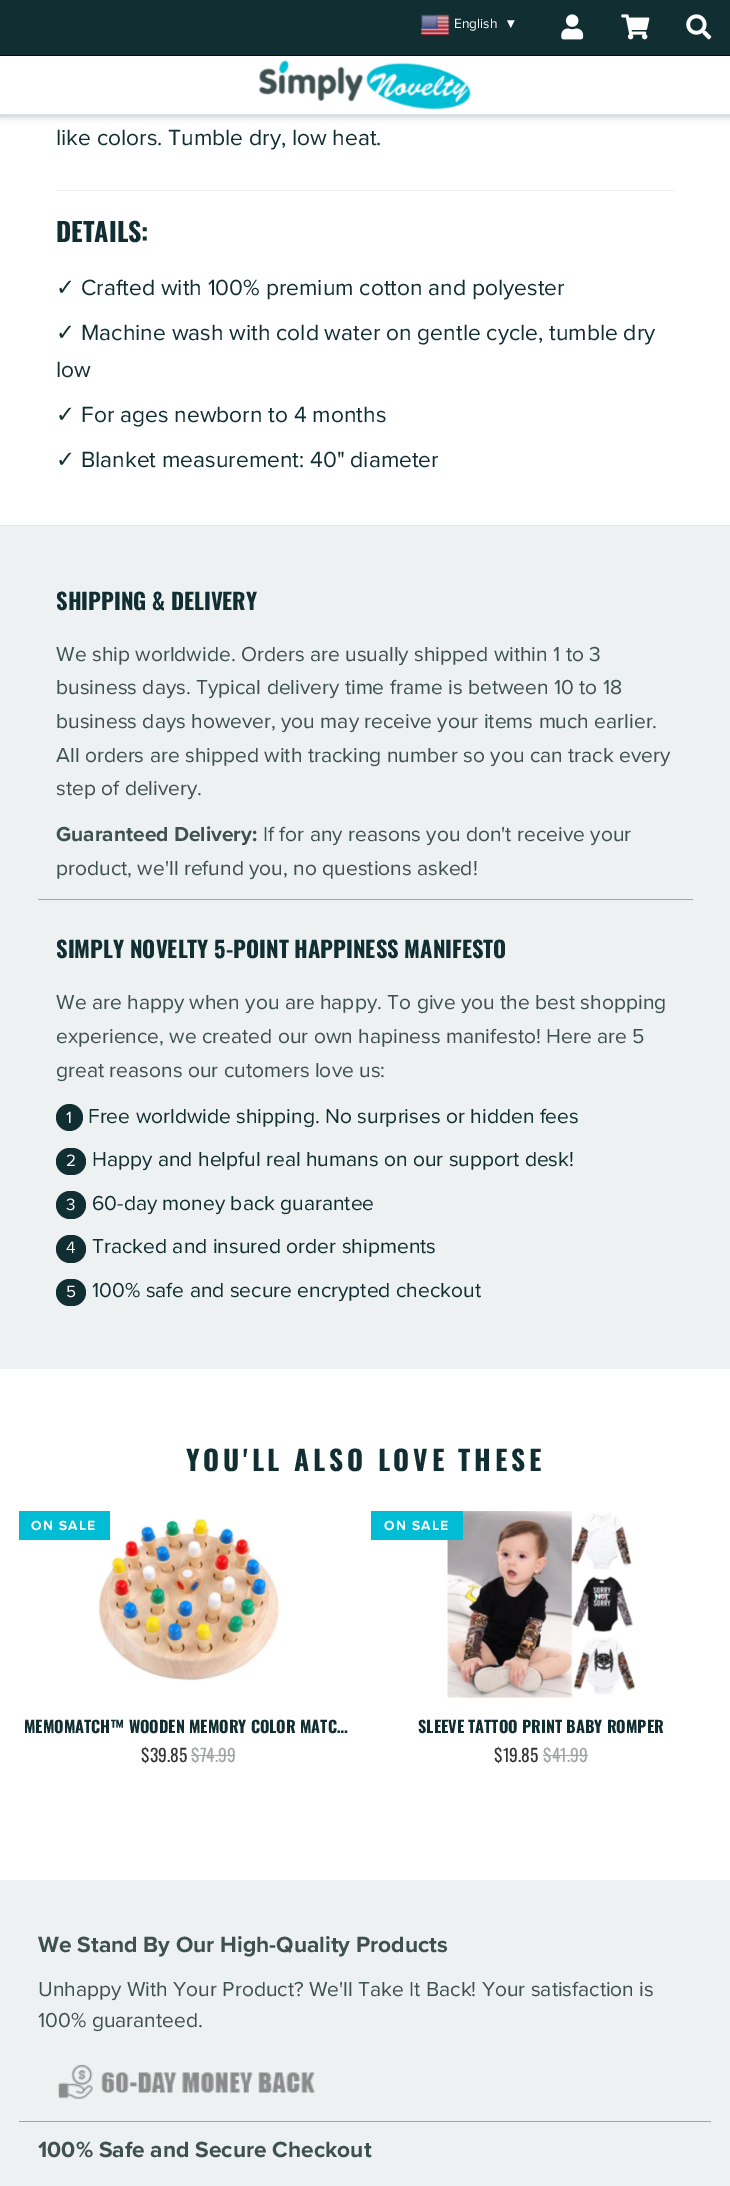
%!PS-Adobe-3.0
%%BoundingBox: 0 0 730 2186
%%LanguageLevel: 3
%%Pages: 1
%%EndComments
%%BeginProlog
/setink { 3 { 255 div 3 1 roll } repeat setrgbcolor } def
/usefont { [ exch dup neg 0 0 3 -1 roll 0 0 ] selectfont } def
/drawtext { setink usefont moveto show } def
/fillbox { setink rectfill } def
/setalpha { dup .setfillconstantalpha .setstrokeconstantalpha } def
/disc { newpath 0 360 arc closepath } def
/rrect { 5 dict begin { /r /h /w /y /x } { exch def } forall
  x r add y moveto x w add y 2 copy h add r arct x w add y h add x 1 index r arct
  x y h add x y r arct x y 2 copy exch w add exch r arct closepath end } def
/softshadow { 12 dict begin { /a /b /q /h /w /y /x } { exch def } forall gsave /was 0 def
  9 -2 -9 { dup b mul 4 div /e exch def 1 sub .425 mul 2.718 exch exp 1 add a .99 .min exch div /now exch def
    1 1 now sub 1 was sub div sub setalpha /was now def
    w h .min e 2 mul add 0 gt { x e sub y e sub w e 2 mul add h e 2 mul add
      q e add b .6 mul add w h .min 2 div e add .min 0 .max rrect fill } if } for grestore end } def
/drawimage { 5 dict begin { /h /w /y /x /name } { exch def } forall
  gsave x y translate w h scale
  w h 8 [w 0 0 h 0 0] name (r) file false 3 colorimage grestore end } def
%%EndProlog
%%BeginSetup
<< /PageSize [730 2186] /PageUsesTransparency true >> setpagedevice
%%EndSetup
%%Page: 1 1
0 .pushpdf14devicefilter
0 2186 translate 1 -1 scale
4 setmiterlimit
0 0 730 2186 255 255 255 fillbox
160 166 164 setink
0 0 730 115 0 4 1 softshadow
0 56 730 58 255 255 255 fillbox
0 0 730 55 17 47 50 fillbox
0 55 730 1 9 9 9 fillbox
(assets/img1.rgb) 420 14 30 23 drawimage
(English) 454 28 /ProximaNova-Regular 13.75 255 255 255 drawtext
(▼) 504 28 /LiberationSans-Bold 13.75 255 255 255 drawtext
(assets/img2.rgb) 561 14 23 26 drawimage
(assets/img3.rgb) 621 14 29 26 drawimage
(assets/img4.rgb) 686 14 26 26 drawimage
0 114 730 1 223 232 232 fillbox
(assets/img5.rgb) 259 60 212 50 drawimage
0 525 730 1 223 232 232 fillbox
(like colors. Tumble dry, low heat.) 56 145 /ProximaNova-Regular 22.75 17 47 50 drawtext
56 190 618 1 238 238 238 fillbox
(DETAILS:) 56 242 /Oswald-Bold 26 17 47 50 drawtext
(✓) 56 295 /DejaVuSans-Regular 22.75 17 47 50 drawtext
(Crafted with 100% premium cotton and polyester) 81 295 /ProximaNova-Regular 22.75 17 47 50 drawtext
(✓) 56 340 /DejaVuSans-Regular 22.75 17 47 50 drawtext
(Machine wash with cold water on gentle cycle, tumble dry) 81 340 /ProximaNova-Regular 22.75 17 47 50 drawtext
(low) 56 377 /ProximaNova-Regular 22.75 17 47 50 drawtext
(✓) 56 422 /DejaVuSans-Regular 22.75 17 47 50 drawtext
(For ages newborn to 4 months) 81 422 /ProximaNova-Regular 22.75 17 47 50 drawtext
(✓) 56 467 /DejaVuSans-Regular 22.75 17 47 50 drawtext
(Blanket measurement: 40" diameter) 81 467 /ProximaNova-Regular 22.75 17 47 50 drawtext
0 526 730 843 238 241 241 fillbox
(SHIPPING & DELIVERY) 56 610 /Oswald-Bold 22.5 17 47 50 drawtext
(We ship worldwide. Orders are usually shipped within 1 to 3) 56 661 /ProximaNova-Regular 21 62 81 80 drawtext
(business days. Typical delivery time frame is between 10 to 18) 56 694 /ProximaNova-Regular 21 62 81 80 drawtext
(business days however, you may receive your items much earlier.) 56 728 /ProximaNova-Regular 21 62 81 80 drawtext
(All orders are shipped with tracking number so you can track every) 56 762 /ProximaNova-Regular 21 62 81 80 drawtext
(step of delivery.) 56 795 /ProximaNova-Regular 21 62 81 80 drawtext
(Guaranteed Delivery:) 56 841 /ProximaNova-Bold 21 62 81 80 drawtext
(If for any reasons you don't receive your) 263 841 /ProximaNova-Regular 21 62 81 80 drawtext
(product, we'll refund you, no questions asked!) 56 875 /ProximaNova-Regular 21 62 81 80 drawtext
38 899 655 1 160 166 164 fillbox
(SIMPLY NOVELTY 5-POINT HAPPINESS MANIFESTO) 56 958 /Oswald-Bold 22.5 17 47 50 drawtext
(We are happy when you are happy. To give you the best shopping) 56 1009 /ProximaNova-Regular 21 62 81 80 drawtext
(experience, we created our own hapiness manifesto! Here are 5) 56 1043 /ProximaNova-Regular 21 62 81 80 drawtext
(great reasons our cutomers love us:) 56 1077 /ProximaNova-Regular 21 62 81 80 drawtext
17 47 50 setink
69.5 1117.5 13.5 disc fill
(1) 66 1123 /ProximaNova-Regular 17 255 255 255 drawtext
(Free worldwide shipping. No surprises or hidden fees) 88 1123 /ProximaNova-Regular 21 17 47 50 drawtext
56 1148 30 27 13.5 rrect fill
(2) 66 1166 /ProximaNova-Regular 17 255 255 255 drawtext
(Happy and helpful real humans on our support desk!) 92 1166 /ProximaNova-Regular 21 17 47 50 drawtext
56 1191 30 28 14 rrect fill
(3) 66 1210 /ProximaNova-Regular 17 255 255 255 drawtext
(60-day money back guarantee) 92 1210 /ProximaNova-Regular 21 17 47 50 drawtext
56 1235 30 28 14 rrect fill
(4) 66 1253 /ProximaNova-Regular 17 255 255 255 drawtext
(Tracked and insured order shipments) 92 1253 /ProximaNova-Regular 21 17 47 50 drawtext
56 1279 30 27 13.5 rrect fill
(5) 66 1297 /ProximaNova-Regular 17 255 255 255 drawtext
(100% safe and secure encrypted checkout) 92 1297 /ProximaNova-Regular 21 17 47 50 drawtext
/Oswald-Bold 27.5 usefont
186 1471 moveto 3.75 0 (YOU'LL ALSO LOVE THESE) ashow
(assets/img6.rgb) 98 1518 181 163 drawimage
19 1511 91 29 0 188 212 fillbox
/ProximaNova-Bold 13.75 usefont
255 255 255 setink
31 1530 moveto 1.25 0 (ON SALE) ashow
(MEMOMATCH™ WOODEN MEMORY COLOR MATC…) 24 1733 /Oswald-Bold 16.25 17 47 50 drawtext
($39.85) 141 1762 /Oswald-Regular 17.5 51 51 51 drawtext
($74.99) 191 1762 /Oswald-Regular 17.5 160 166 164 drawtext
191 1755 44 1 160 166 164 fillbox
(assets/img7.rgb) 447 1511 188 187 drawimage
371 1511 92 29 0 188 212 fillbox
/ProximaNova-Bold 13.75 usefont
255 255 255 setink
384 1530 moveto 1.25 0 (ON SALE) ashow
(SLEEVE TATTOO PRINT BABY ROMPER) 418 1733 /Oswald-Bold 16.25 17 47 50 drawtext
($19.85) 494 1762 /Oswald-Regular 17.5 51 51 51 drawtext
($41.99) 543 1762 /Oswald-Regular 17.5 160 166 164 drawtext
543 1755 45 1 160 166 164 fillbox
0 1880 730 306 238 241 241 fillbox
(We Stand By Our High-Quality Products) 38 1952 /ProximaNova-Bold 22.75 62 81 80 drawtext
(Unhappy With Your Product? We'll Take It Back! Your satisfaction is) 38 1996 /ProximaNova-Regular 21 62 81 80 drawtext
(100% guaranteed.) 38 2027 /ProximaNova-Regular 21 62 81 80 drawtext
(assets/img8.rgb) 58 2064 257 35 drawimage
19 2121 692 1 160 166 164 fillbox
(100% Safe and Secure Checkout) 38 2157 /ProximaNova-Bold 22.75 62 81 80 drawtext
.poppdf14devicefilter showpage
%%EOF
